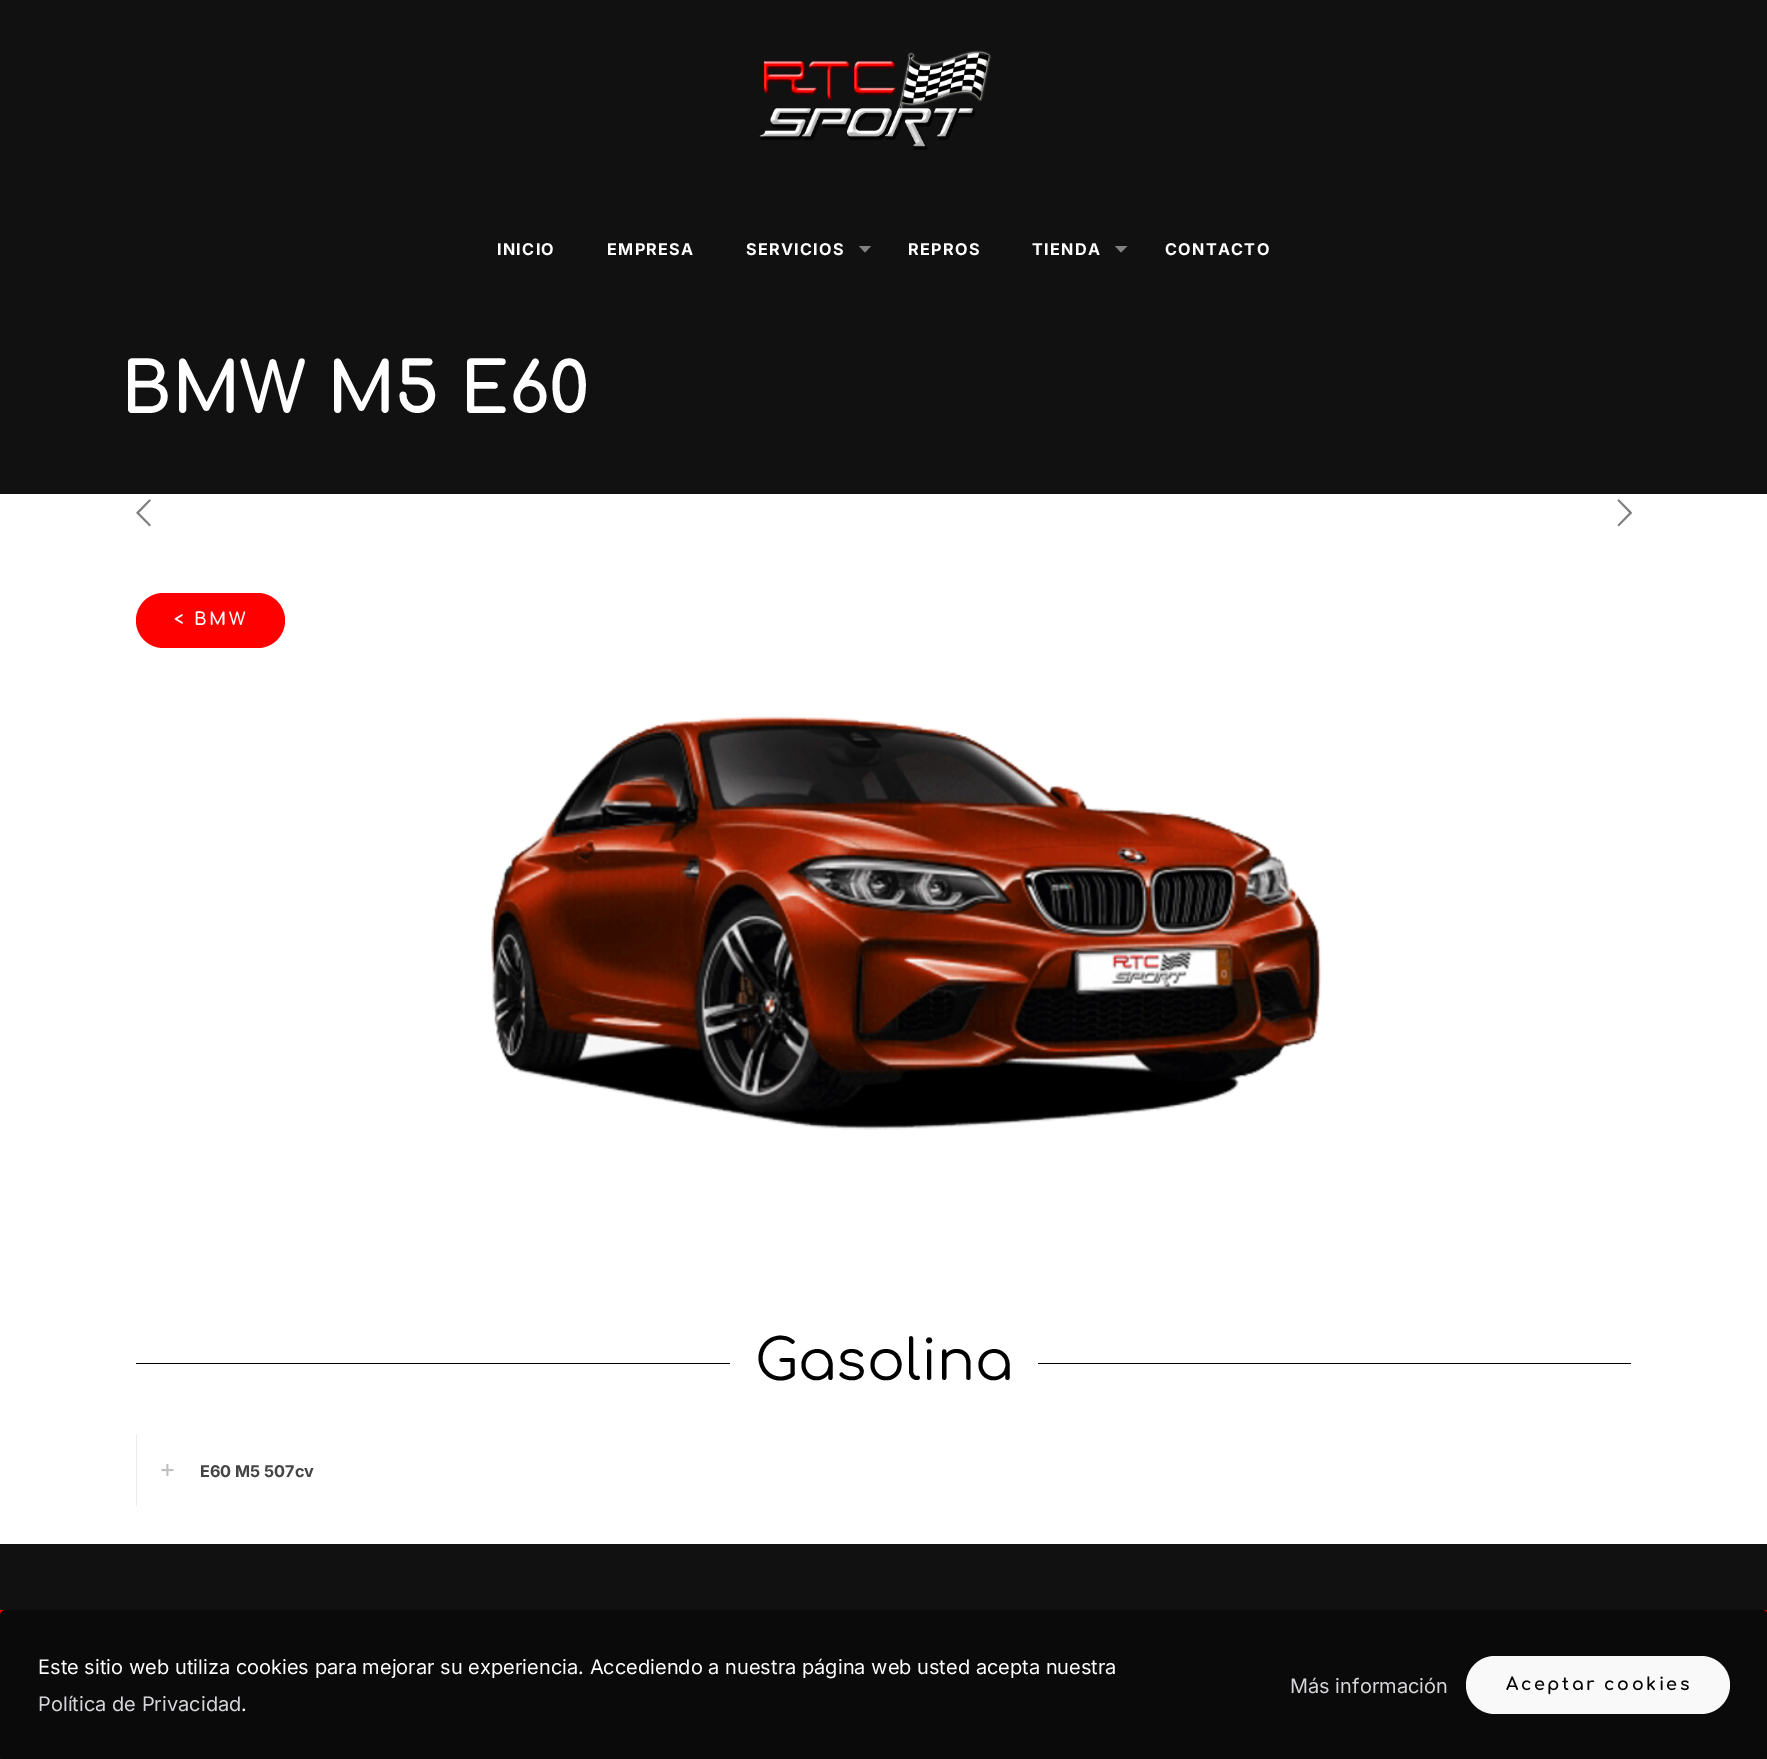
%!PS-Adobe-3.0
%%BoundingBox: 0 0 1767 1759
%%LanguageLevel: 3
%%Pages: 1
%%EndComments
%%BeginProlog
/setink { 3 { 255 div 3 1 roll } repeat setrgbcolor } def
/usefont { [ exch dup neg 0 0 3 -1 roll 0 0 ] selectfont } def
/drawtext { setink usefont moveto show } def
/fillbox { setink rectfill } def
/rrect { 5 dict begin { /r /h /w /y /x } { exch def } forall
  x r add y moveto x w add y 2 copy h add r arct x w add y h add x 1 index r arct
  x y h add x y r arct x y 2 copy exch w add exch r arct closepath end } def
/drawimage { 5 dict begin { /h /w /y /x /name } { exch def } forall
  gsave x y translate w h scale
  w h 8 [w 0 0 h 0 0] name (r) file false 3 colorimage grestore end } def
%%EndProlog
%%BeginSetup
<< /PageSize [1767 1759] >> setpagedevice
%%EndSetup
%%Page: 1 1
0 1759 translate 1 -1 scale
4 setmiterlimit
0 0 1767 1759 255 255 255 fillbox
0 0 1767 494 17 17 17 fillbox
(assets/img1.rgb) 759 50 233 100 drawimage
/Inter-Bold 16.25 usefont
255 255 255 setink
497 255 moveto 1.25 0 (INICIO) ashow
607 255 moveto 1.25 0 (EMPRESA) ashow
746 255 moveto 1.25 0 (SERVICIOS) ashow
129 129 129 setink
859 246 moveto 871 246 lineto 865 252.5 lineto closepath fill
255 255 255 setink
908 255 moveto 1.25 0 (REPROS) ashow
1032 255 moveto 1.25 0 (TIENDA) ashow
129 129 129 setink
1115 246 moveto 1127.5 246 lineto 1121 252.5 lineto closepath fill
255 255 255 setink
1165 255 moveto 1.25 0 (CONTACTO) ashow
(BMW M5 E60) 121 413 /Comfortaa-Bold 70 255 255 255 drawtext
(assets/img2.rgb) 136 499 15 28 drawimage
(assets/img3.rgb) 1617 499 15 28 drawimage
(assets/img4.rgb) 491 716 831 414 drawimage
255 0 0 setink
136 593 149 55 27.5 rrect fill
/Comfortaa-Bold 17.5 usefont
255 255 255 setink
174 625 moveto 2.5 0 (< BMW) ashow
136 1363 594 1 0 0 0 fillbox
(Gasolina) 755 1380 /Comfortaa-Regular 56.25 0 0 0 drawtext
1038 1363 593 1 0 0 0 fillbox
136 1434 1 72 235 235 235 fillbox
(assets/img5.rgb) 161 1464 13 13 drawimage
(E60 M5 507cv) 200 1477 /Inter-Bold 16.25 68 68 68 drawtext
0 1544 1767 215 17 17 17 fillbox
0 1610 6 6 230 0 0 fillbox
1762 1610 5 3 230 0 0 fillbox
10 10 10 setink
0 1610 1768 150 6 rrect fill
(Este sitio web utiliza cookies para mejorar su experiencia. Accediendo a nuestra página web usted acepta nuestra) 38 1674 /Inter-Regular 20 255 255 255 drawtext
(Política de Privacidad) 38 1711 /Inter-Regular 20 214 214 218 drawtext
(.) 241 1711 /Inter-Regular 20 255 255 255 drawtext
(Más información) 1290 1693 /Inter-Regular 20 214 214 218 drawtext
249 249 250 setink
1466 1656 264 58 29 rrect fill
/Comfortaa-Bold 17.5 usefont
0 0 0 setink
1506 1690 moveto 2.5 0 (Aceptar cookies) ashow
showpage
%%EOF
